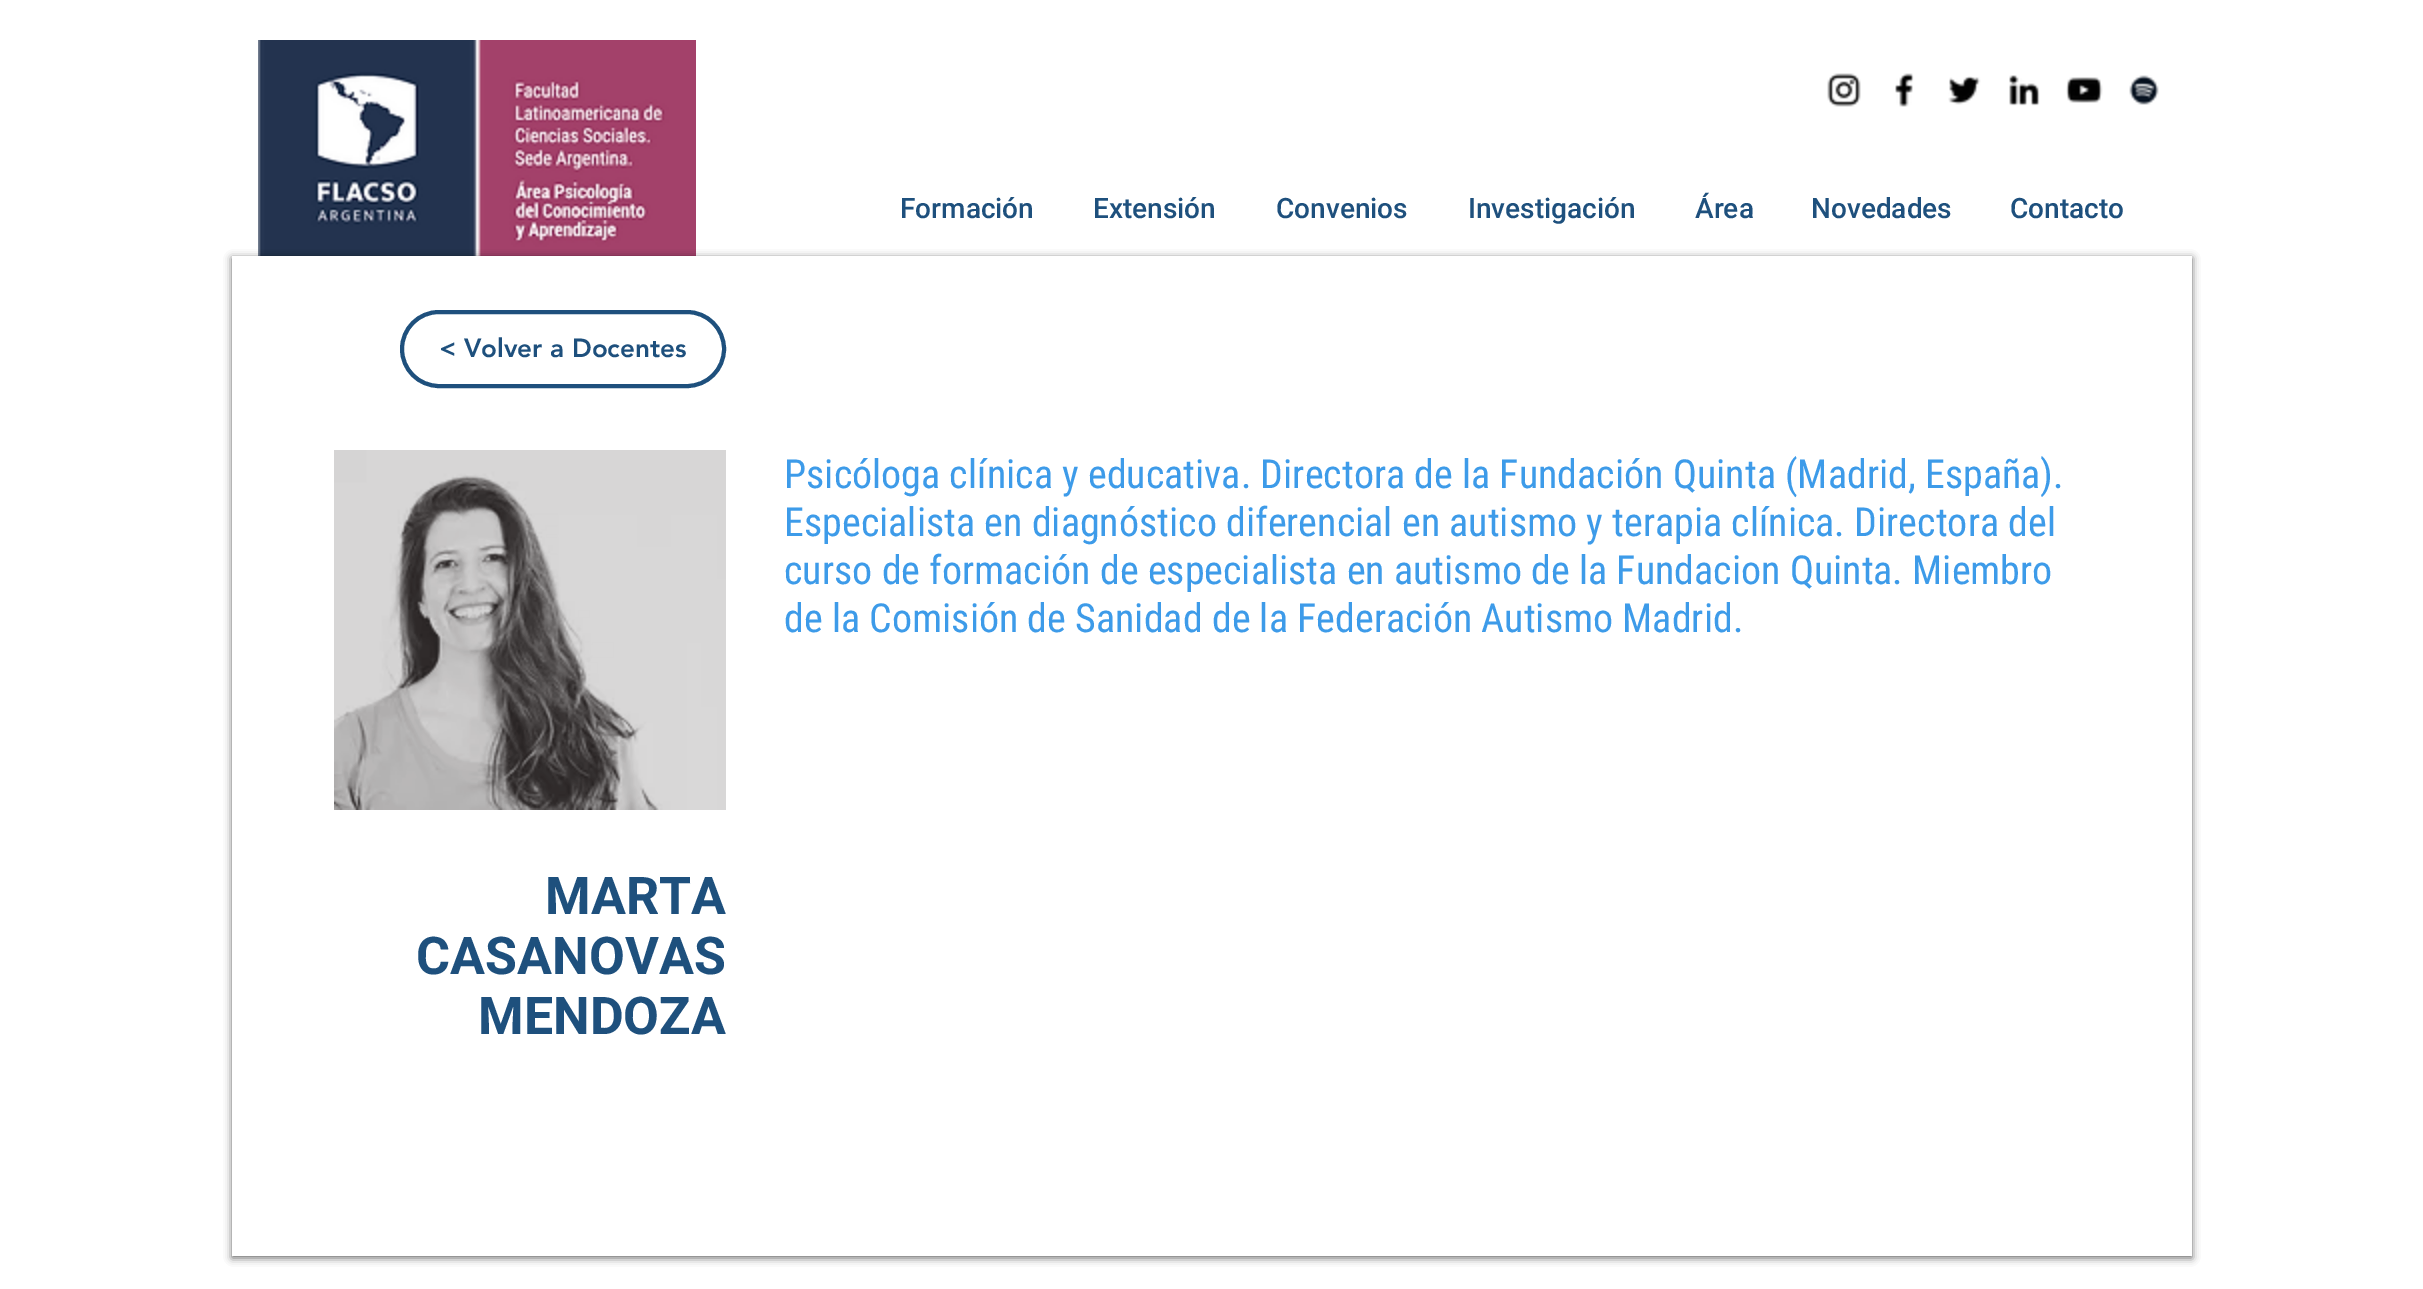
%!PS-Adobe-3.0
%%BoundingBox: 0 0 2423 1289
%%LanguageLevel: 3
%%Pages: 1
%%EndComments
%%BeginProlog
/setink { 3 { 255 div 3 1 roll } repeat setrgbcolor } def
/usefont { [ exch dup neg 0 0 3 -1 roll 0 0 ] selectfont } def
/drawtext { setink usefont moveto show } def
/fillbox { setink rectfill } def
/setalpha { dup .setfillconstantalpha .setstrokeconstantalpha } def
/rrect { 5 dict begin { /r /h /w /y /x } { exch def } forall
  x r add y moveto x w add y 2 copy h add r arct x w add y h add x 1 index r arct
  x y h add x y r arct x y 2 copy exch w add exch r arct closepath end } def
/softshadow { 12 dict begin { /a /b /q /h /w /y /x } { exch def } forall gsave /was 0 def
  9 -2 -9 { dup b mul 4 div /e exch def 1 sub .425 mul 2.718 exch exp 1 add a .99 .min exch div /now exch def
    1 1 now sub 1 was sub div sub setalpha /was now def
    w h .min e 2 mul add 0 gt { x e sub y e sub w e 2 mul add h e 2 mul add
      q e add b .6 mul add w h .min 2 div e add .min 0 .max rrect fill } if } for grestore end } def
/drawimage { 5 dict begin { /h /w /y /x /name } { exch def } forall
  gsave x y translate w h scale
  w h 8 [w 0 0 h 0 0] name (r) file false 3 colorimage grestore end } def
%%EndProlog
%%BeginSetup
<< /PageSize [2423 1289] /PageUsesTransparency true >> setpagedevice
%%EndSetup
%%Page: 1 1
0 .pushpdf14devicefilter
0 1289 translate 1 -1 scale
4 setmiterlimit
0 0 2423 1289 255 255 255 fillbox
(assets/img1.rgb) 258 40 438 216 drawimage
(assets/img2.rgb) 1827 73 34 34 drawimage
(assets/img3.rgb) 1895 73 19 34 drawimage
(assets/img4.rgb) 1948 76 33 29 drawimage
(assets/img5.rgb) 2009 75 31 31 drawimage
(assets/img6.rgb) 2066 77 37 26 drawimage
(assets/img7.rgb) 2129 75 30 30 drawimage
(Formación) 900 218 /Roboto-Medium 28 30 80 125 drawtext
(Extensión) 1093 218 /Roboto-Medium 28 30 80 125 drawtext
(Convenios) 1276 218 /Roboto-Medium 28 30 80 125 drawtext
(Investigación) 1468 218 /Roboto-Medium 28 30 80 125 drawtext
(Área) 1695 218 /Roboto-Medium 28 30 80 125 drawtext
(Novedades) 1811 218 /Roboto-Medium 28 30 80 125 drawtext
(Contacto) 2010 218 /Roboto-Medium 28 30 80 125 drawtext
gsave
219 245 moveto 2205 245 lineto 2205 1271 lineto 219 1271 lineto closepath 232 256 moveto 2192 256 lineto 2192 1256 lineto 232 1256 lineto closepath eoclip newpath
0 0 0 setink
232 258 1960 1000 0 4 0.6 softshadow
grestore
4 setlinewidth
402 312 322 74 37 rrect stroke
(< Volver a Docentes) 439 357 /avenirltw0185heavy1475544-Black 26 30 80 125 drawtext
(assets/img8.rgb) 334 450 392 360 drawimage
(Psicóloga clínica y educativa. Directora de la Fundación Quinta \(Madrid, España\).) 784 488 /RobotoCondensed-Regular 40 61 155 233 drawtext
(Especialista en diagnóstico diferencial en autismo y terapia clínica. Directora del) 784 536 /RobotoCondensed-Regular 40 61 155 233 drawtext
(curso de formación de especialista en autismo de la Fundacion Quinta. Miembro) 784 584 /RobotoCondensed-Regular 40 61 155 233 drawtext
(de la Comisión de Sanidad de la Federación Autismo Madrid.) 784 632 /RobotoCondensed-Regular 40 61 155 233 drawtext
(MARTA) 545 914 /Roboto-Bold 52 30 80 125 drawtext
(CASANOVAS) 416 974 /Roboto-Bold 52 30 80 125 drawtext
(MENDOZA) 478 1034 /Roboto-Bold 52 30 80 125 drawtext
.poppdf14devicefilter showpage
%%EOF
